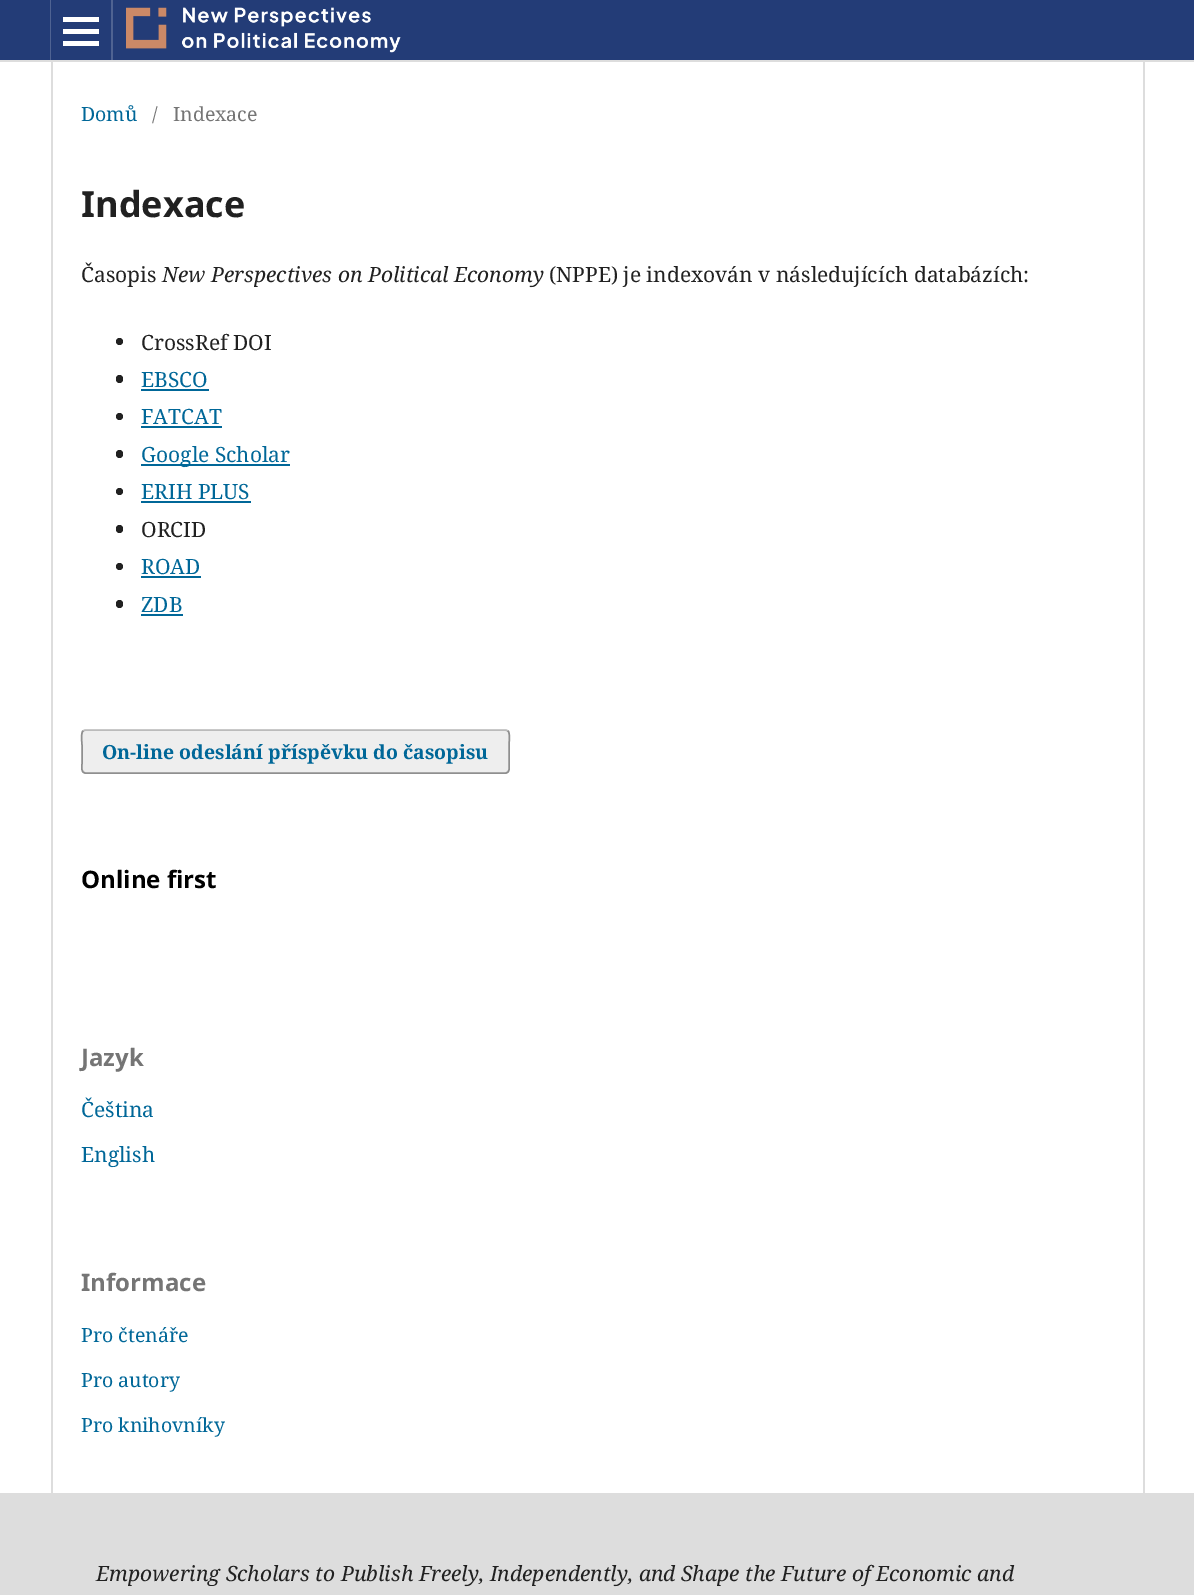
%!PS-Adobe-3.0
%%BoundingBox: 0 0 1194 1595
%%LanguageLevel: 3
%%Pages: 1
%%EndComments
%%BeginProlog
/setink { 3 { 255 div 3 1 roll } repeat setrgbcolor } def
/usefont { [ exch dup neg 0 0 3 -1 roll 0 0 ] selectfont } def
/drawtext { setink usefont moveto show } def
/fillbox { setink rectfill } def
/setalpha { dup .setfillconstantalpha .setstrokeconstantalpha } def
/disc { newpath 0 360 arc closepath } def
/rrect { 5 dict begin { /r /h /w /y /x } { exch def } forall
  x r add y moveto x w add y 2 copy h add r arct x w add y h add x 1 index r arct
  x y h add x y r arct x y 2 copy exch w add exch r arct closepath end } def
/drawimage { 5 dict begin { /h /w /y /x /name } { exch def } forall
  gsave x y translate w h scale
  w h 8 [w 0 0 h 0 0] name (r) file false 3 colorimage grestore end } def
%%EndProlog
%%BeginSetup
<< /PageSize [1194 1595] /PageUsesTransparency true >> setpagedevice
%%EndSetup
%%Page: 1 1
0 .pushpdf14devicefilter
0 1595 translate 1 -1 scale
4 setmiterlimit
0 0 1194 1595 255 255 255 fillbox
0 0 1194 60 35 60 119 fillbox
0 60 1194 2 221 221 221 fillbox
50 0 1 60 79 99 146 fillbox
111 0 2 60 79 99 146 fillbox
63 41 36 5 255 255 255 fillbox
63 17 36 5 255 255 255 fillbox
63 29 36 5 255 255 255 fillbox
(assets/img1.rgb) 126 7 275 46 drawimage
51 62 2 1431 221 221 221 fillbox
(Domů) 81 121 /NotoSerif-Regular 19.5 0 103 152 drawtext
(/) 152 121 /NotoSerif-Regular 19.5 117 117 117 drawtext
(Indexace) 173 121 /NotoSerif-Regular 19.5 117 117 117 drawtext
1143 62 2 1431 221 221 221 fillbox
(Indexace) 81 217 /NotoSans-Bold 36 33 33 33 drawtext
(Časopis) 81 282 /NotoSerif-Regular 21 33 33 33 drawtext
(New Perspectives on Political Economy) 162 282 /NotoSerif-Italic 21 33 33 33 drawtext
(\(NPPE\) je indexován v následujících databázích:) 549 282 /NotoSerif-Regular 21 33 33 33 drawtext
119.5 341.5 3.5 disc fill
(CrossRef DOI) 141 350 /NotoSerif-Regular 21 33 33 33 drawtext
116 375 7 8 3.5 rrect fill
(EBSCO) 141 387 /NotoSerif-Regular 21 0 103 152 drawtext
141 389 68 2 0 103 152 fillbox
33 33 33 setink
119.5 416.5 3.5 disc fill
(FATCAT) 141 424 /NotoSerif-Regular 21 0 103 152 drawtext
141 426 81 2 0 103 152 fillbox
33 33 33 setink
116 450 7 8 3.5 rrect fill
141 464 149 2 0 103 152 fillbox
(Google Scholar) 141 462 /NotoSerif-Regular 21 0 103 152 drawtext
33 33 33 setink
119.5 491.5 3.5 disc fill
(ERIH PLUS) 141 499 /NotoSerif-Regular 21 0 103 152 drawtext
141 501 110 2 0 103 152 fillbox
33 33 33 setink
116 525 7 8 3.5 rrect fill
(ORCID) 141 537 /NotoSerif-Regular 21 33 33 33 drawtext
119.5 566.5 3.5 disc fill
(ROAD) 141 574 /NotoSerif-Regular 21 0 103 152 drawtext
141 576 60 2 0 103 152 fillbox
33 33 33 setink
116 600 7 8 3.5 rrect fill
(ZDB) 141 612 /NotoSerif-Regular 21 0 103 152 drawtext
141 614 42 2 0 103 152 fillbox
238 238 238 setink
81 729 429 45 5 rrect fill
187 187 187 setink
1.5 setlinewidth
83 731 moveto 85.5 730 lineto 505.5 730 lineto 508 731 lineto stroke
0.4 setalpha
0 0 0 setink
508 731 moveto 510.5 733.5 509 742.5 509 745.5 curveto 509 763.5 lineto 509 766.5 510.5 773 505.5 773 curveto 85.5 773 lineto 80.5 773 82 766.5 82 763.5 curveto 82 745.5 lineto 82 742.5 80.5 733.5 83 731 curveto stroke
1 setalpha
(On-line odeslání příspěvku do časopisu) 102 759 /NotoSerif-Bold 19.5 0 103 152 drawtext
(Online first) 81 888 /NotoSans-Bold 24 0 0 0 drawtext
(Jazyk) 81 1066 /NotoSans-Bold 24 117 117 117 drawtext
(Čeština) 81 1117 /NotoSerif-Regular 21 0 103 152 drawtext
(English) 81 1162 /NotoSerif-Regular 21 0 103 152 drawtext
(Informace) 81 1291 /NotoSans-Bold 24 117 117 117 drawtext
(Pro čtenáře) 81 1342 /NotoSerif-Regular 19.5 0 103 152 drawtext
(Pro autory) 81 1387 /NotoSerif-Regular 19.5 0 103 152 drawtext
(Pro knihovníky) 81 1432 /NotoSerif-Regular 19.5 0 103 152 drawtext
0 1493 1194 102 221 221 221 fillbox
(Empowering Scholars to Publish Freely, Independently, and Shape the Future of Economic and) 96 1581 /NotoSerif-Italic 21 33 33 33 drawtext
.poppdf14devicefilter showpage
%%EOF
